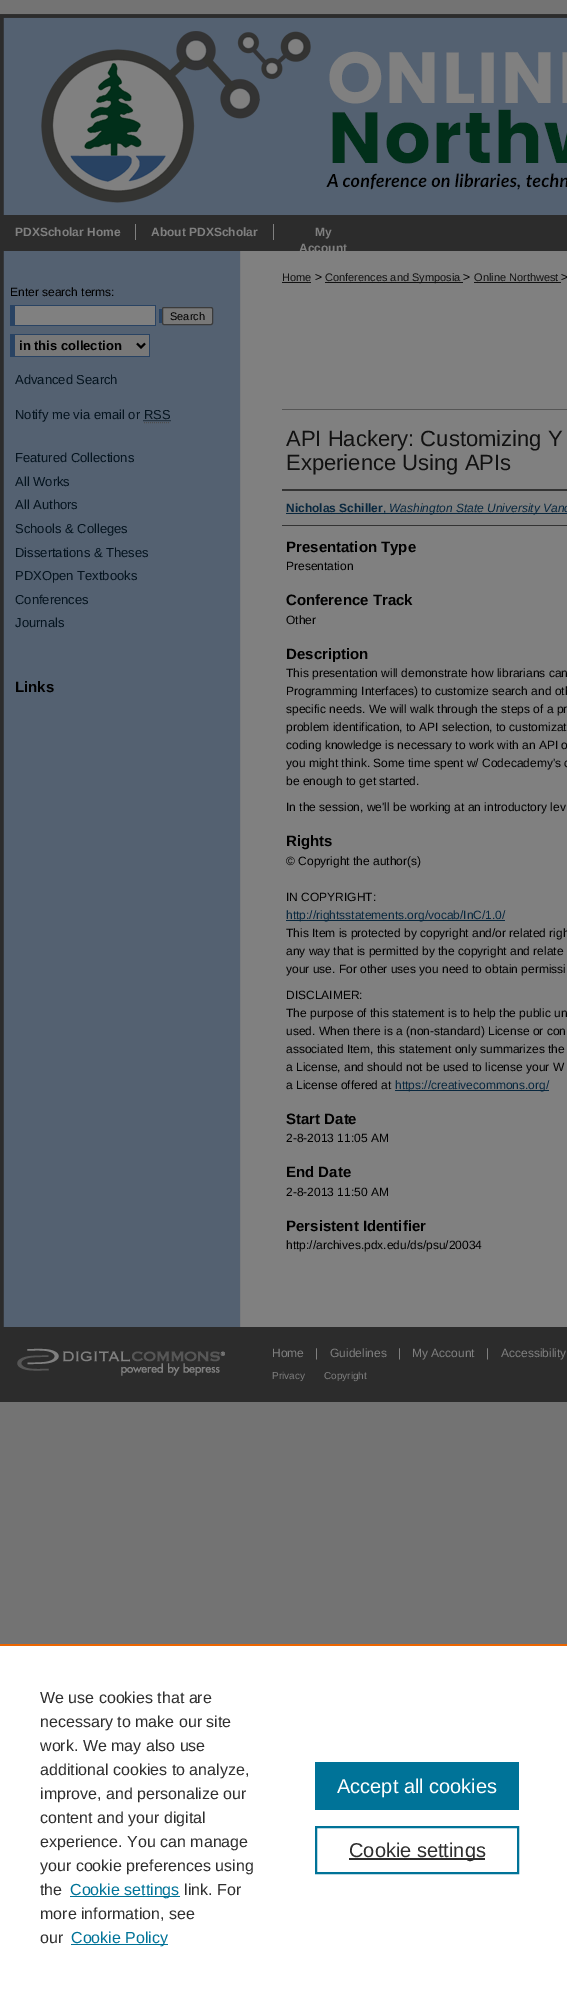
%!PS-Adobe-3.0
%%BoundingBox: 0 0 567 1990
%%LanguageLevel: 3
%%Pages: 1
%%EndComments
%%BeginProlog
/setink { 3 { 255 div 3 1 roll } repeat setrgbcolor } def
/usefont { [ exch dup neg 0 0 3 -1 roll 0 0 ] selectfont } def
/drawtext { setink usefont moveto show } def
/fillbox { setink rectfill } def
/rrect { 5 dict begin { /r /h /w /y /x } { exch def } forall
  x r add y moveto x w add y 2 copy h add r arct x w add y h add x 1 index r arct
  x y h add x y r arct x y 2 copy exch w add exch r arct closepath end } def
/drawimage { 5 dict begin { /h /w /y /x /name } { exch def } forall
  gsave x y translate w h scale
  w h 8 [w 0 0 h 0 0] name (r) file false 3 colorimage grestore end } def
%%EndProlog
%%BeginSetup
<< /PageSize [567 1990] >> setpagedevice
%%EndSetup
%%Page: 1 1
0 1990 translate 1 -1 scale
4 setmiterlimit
0 0 567 1990 115 115 115 fillbox
(assets/img1.rgb) 0 14 567 201 drawimage
0 215 567 36 44 44 44 fillbox
135 224 1 16 128 128 128 fillbox
(PDXScholar Home) 15 236 /LiberationSans-Bold 12 128 128 128 drawtext
273 224 1 16 128 128 128 fillbox
(About PDXScholar) 151 236 /LiberationSans-Bold 12 128 128 128 drawtext
(My) 315 236 /LiberationSans-Bold 12 128 128 128 drawtext
(assets/img2.rgb) 0 251 567 1076 drawimage
(Account) 299 252 /LiberationSans-Bold 12 128 128 128 drawtext
(Enter search terms:) 10 296 /LiberationSans-Regular 12 0 0 0 drawtext
10 305 146 21 41 67 99 fillbox
159 309 3 14 41 67 99 fillbox
15 306 140 19 128 128 128 fillbox
120 120 120 setink
162.5 307.5 50 17 1.5 rrect gsave fill grestore
59 59 59 setink
stroke
(Search) 170 320 /LiberationSans-Regular 11 0 0 0 drawtext
15 335 134 21 120 120 120 fillbox
10 334 140 1 41 67 99 fillbox
149 334 1 23 41 67 99 fillbox
10 356 140 1 41 67 99 fillbox
10 334 5 23 41 67 99 fillbox
0 0 0 setink
2 setlinewidth
137 343.5 moveto 141 347.5 lineto 145 343.5 lineto stroke
(in this collection) 19 350 /LiberationSans-Bold 13 0 0 0 drawtext
(Advanced Search) 15 384 /LiberationSans-Regular 13 4 19 30 drawtext
(Notify me via email or RSS) 15 419 /LiberationSans-Regular 13 4 19 30 drawtext
1 setlinewidth
[1 1] 0 setdash
143.5 420.5 moveto 170.5 420.5 lineto stroke
77 77 77 setink
144 422.5 moveto 170 422.5 lineto stroke
(Featured Collections) 15 462 /LiberationSans-Regular 13 4 19 30 drawtext
(All Works) 15 486 /LiberationSans-Regular 13 4 19 30 drawtext
(All Authors) 15 509 /LiberationSans-Regular 13 4 19 30 drawtext
(Schools & Colleges) 15 533 /LiberationSans-Regular 13 4 19 30 drawtext
(Dissertations & Theses) 15 557 /LiberationSans-Regular 13 4 19 30 drawtext
(PDXOpen Textbooks) 15 580 /LiberationSans-Regular 13 4 19 30 drawtext
(Conferences) 15 604 /LiberationSans-Regular 13 4 19 30 drawtext
(Journals) 15 627 /LiberationSans-Regular 13 4 19 30 drawtext
(Links) 15 692 /LiberationSans-Bold 15 0 0 0 drawtext
(Home) 282 281 /LiberationSans-Regular 11 17 17 17 drawtext
282 282 29 1 17 17 17 fillbox
(>) 315 281 /LiberationSans-Regular 12 0 0 0 drawtext
325 282 138 1 17 17 17 fillbox
(Conferences and Symposia) 325 281 /LiberationSans-Regular 11 17 17 17 drawtext
(>) 463 281 /LiberationSans-Regular 12 0 0 0 drawtext
(Online Northwest) 474 281 /LiberationSans-Regular 11 17 17 17 drawtext
474 282 87 1 17 17 17 fillbox
(>) 561 281 /LiberationSans-Regular 12 0 0 0 drawtext
282 409 285 1 85 85 85 fillbox
(API Hackery: Customizing Y) 286 446 /LiberationSans-Regular 22 17 17 17 drawtext
(Experience Using APIs) 286 470 /LiberationSans-Regular 22 17 17 17 drawtext
282 489 285 2 51 51 51 fillbox
282 525 285 1 51 51 51 fillbox
(Nicholas Schiller) 286 512 /LiberationSans-Bold 12 8 39 62 drawtext
286 513 281 1 8 39 62 fillbox
(,) 383 512 /LiberationSans-Regular 12 8 39 62 drawtext
(Washington State University Vanc) 389 512 /LiberationSans-Italic 12 8 39 62 drawtext
(Presentation Type) 286 552 /LiberationSans-Bold 15 0 0 0 drawtext
(Presentation) 286 570 /LiberationSans-Regular 12 0 0 0 drawtext
(Conference Track) 286 605 /LiberationSans-Bold 15 0 0 0 drawtext
(Other) 286 624 /LiberationSans-Regular 12 0 0 0 drawtext
(Description) 286 659 /LiberationSans-Bold 15 0 0 0 drawtext
(This presentation will demonstrate how librarians can) 286 677 /LiberationSans-Regular 12 0 0 0 drawtext
(Programming Interfaces\) to customize search and oth) 286 695 /LiberationSans-Regular 12 0 0 0 drawtext
(specific needs. We will walk through the steps of a pr) 286 713 /LiberationSans-Regular 12 0 0 0 drawtext
(problem identification, to API selection, to customizat) 286 731 /LiberationSans-Regular 12 0 0 0 drawtext
(coding knowledge is necessary to work with an API o) 286 749 /LiberationSans-Regular 12 0 0 0 drawtext
(you might think. Some time spent w/ Codecademy's c) 286 767 /LiberationSans-Regular 12 0 0 0 drawtext
(be enough to get started.) 286 785 /LiberationSans-Regular 12 0 0 0 drawtext
(In the session, we'll be working at an introductory lev) 286 811 /LiberationSans-Regular 12 0 0 0 drawtext
(Rights) 286 846 /LiberationSans-Bold 15 0 0 0 drawtext
(© Copyright the author\(s\)) 286 865 /LiberationSans-Regular 12 0 0 0 drawtext
(IN COPYRIGHT:) 286 901 /LiberationSans-Regular 12 0 0 0 drawtext
286 920 219 1 8 39 62 fillbox
(http://rightsstatements.org/vocab/InC/1.0/) 286 919 /LiberationSans-Regular 12 8 39 62 drawtext
(This Item is protected by copyright and/or related righ) 286 937 /LiberationSans-Regular 12 0 0 0 drawtext
(any way that is permitted by the copyright and relate) 286 955 /LiberationSans-Regular 12 0 0 0 drawtext
(your use. For other uses you need to obtain permissi) 286 973 /LiberationSans-Regular 12 0 0 0 drawtext
(DISCLAIMER:) 286 999 /LiberationSans-Regular 12 0 0 0 drawtext
(The purpose of this statement is to help the public un) 286 1017 /LiberationSans-Regular 12 0 0 0 drawtext
(used. When there is a \(non-standard\) License or con) 286 1035 /LiberationSans-Regular 12 0 0 0 drawtext
(associated Item, this statement only summarizes the) 286 1053 /LiberationSans-Regular 12 0 0 0 drawtext
(a License, and should not be used to license your W) 286 1071 /LiberationSans-Regular 12 0 0 0 drawtext
(a License offered at) 286 1089 /LiberationSans-Regular 12 0 0 0 drawtext
395 1090 154 1 8 39 62 fillbox
(https://creativecommons.org/) 395 1089 /LiberationSans-Regular 12 8 39 62 drawtext
(Start Date) 286 1124 /LiberationSans-Bold 15 0 0 0 drawtext
(2-8-2013 11:05 AM) 286 1142 /LiberationSans-Regular 12 0 0 0 drawtext
(End Date) 286 1177 /LiberationSans-Bold 15 0 0 0 drawtext
(2-8-2013 11:50 AM) 286 1196 /LiberationSans-Regular 12 0 0 0 drawtext
(Persistent Identifier) 286 1231 /LiberationSans-Bold 15 0 0 0 drawtext
(http://archives.pdx.edu/ds/psu/20034) 286 1249 /LiberationSans-Regular 12 0 0 0 drawtext
0 1327 567 75 44 44 44 fillbox
(assets/img3.rgb) 17 1348 208 28 drawimage
(Home) 272 1357 /LiberationSans-Regular 12 128 128 128 drawtext
(|) 315 1357 /LiberationSans-Regular 12 128 128 128 drawtext
(Guidelines) 330 1357 /LiberationSans-Regular 12 128 128 128 drawtext
(|) 398 1357 /LiberationSans-Regular 12 128 128 128 drawtext
(My Account) 412 1357 /LiberationSans-Regular 12 128 128 128 drawtext
(|) 486 1357 /LiberationSans-Regular 12 128 128 128 drawtext
(Accessibility) 501 1357 /LiberationSans-Regular 12 128 128 128 drawtext
(Privacy) 272 1379 /LiberationSans-Regular 10 128 128 128 drawtext
(Copyright) 324 1379 /LiberationSans-Regular 10 128 128 128 drawtext
0 1646 567 344 255 255 255 fillbox
0 1644 567 2 235 101 0 fillbox
(We use cookies that are) 40 1703 /LiberationSans-Regular 16 46 46 46 drawtext
(necessary to make our site) 40 1727 /LiberationSans-Regular 16 46 46 46 drawtext
(work. We may also use) 40 1751 /LiberationSans-Regular 16 46 46 46 drawtext
(additional cookies to analyze,) 40 1775 /LiberationSans-Regular 16 46 46 46 drawtext
(improve, and personalize our) 40 1799 /LiberationSans-Regular 16 46 46 46 drawtext
(content and your digital) 40 1823 /LiberationSans-Regular 16 46 46 46 drawtext
(experience. You can manage) 40 1847 /LiberationSans-Regular 16 46 46 46 drawtext
(your cookie preferences using) 40 1871 /LiberationSans-Regular 16 46 46 46 drawtext
(the) 40 1895 /LiberationSans-Regular 16 46 46 46 drawtext
70 1896 110 1 0 115 152 fillbox
(Cookie settings) 70 1895 /LiberationSans-Regular 16 0 115 152 drawtext
(link. For) 184 1895 /LiberationSans-Regular 16 46 46 46 drawtext
(more information, see) 40 1919 /LiberationSans-Regular 16 46 46 46 drawtext
(our) 40 1943 /LiberationSans-Regular 16 46 46 46 drawtext
71 1944 97 1 0 115 152 fillbox
(Cookie Policy) 71 1943 /LiberationSans-Regular 16 0 115 152 drawtext
315 1762 204 48 0 115 152 fillbox
(Accept all cookies) 337 1793 /LiberationSans-Regular 20 255 255 255 drawtext
0 115 152 setink
2 setlinewidth
[] 0 setdash
316 1827 202 46 rectstroke
349 1858 136 2 46 46 46 fillbox
(Cookie settings) 349 1857 /LiberationSans-Regular 20 46 46 46 drawtext
showpage
%%EOF
